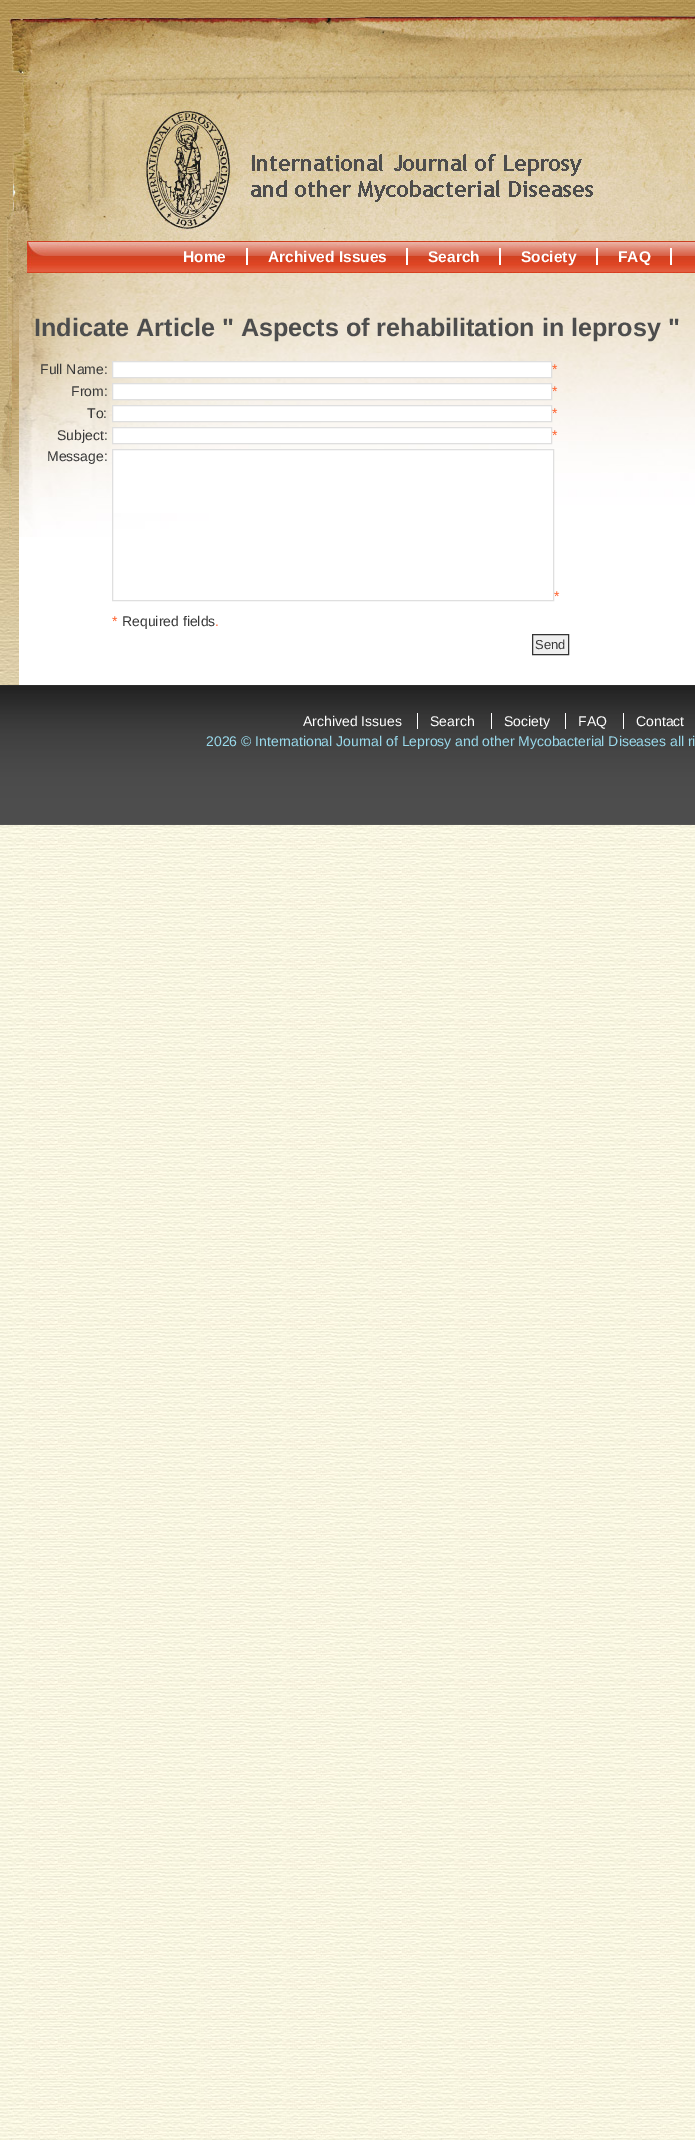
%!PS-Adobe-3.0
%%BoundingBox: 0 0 695 2140
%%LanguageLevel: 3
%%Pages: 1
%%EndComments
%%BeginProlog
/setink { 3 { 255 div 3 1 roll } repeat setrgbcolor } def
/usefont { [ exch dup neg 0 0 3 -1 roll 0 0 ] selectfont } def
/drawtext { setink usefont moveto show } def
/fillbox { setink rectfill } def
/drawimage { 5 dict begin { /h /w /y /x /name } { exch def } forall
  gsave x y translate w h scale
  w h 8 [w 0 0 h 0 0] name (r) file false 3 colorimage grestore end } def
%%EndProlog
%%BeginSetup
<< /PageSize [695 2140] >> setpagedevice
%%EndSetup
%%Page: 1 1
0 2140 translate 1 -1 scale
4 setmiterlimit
0 0 695 2140 255 255 255 fillbox
(assets/img1.rgb) 0 825 695 1315 drawimage
(assets/img2.rgb) 0 540 19 145 drawimage
(assets/img3.rgb) 0 685 695 140 drawimage
(assets/img4.rgb) 0 0 695 540 drawimage
(Home) 183 262 /LiberationSans-Bold 15.5 255 255 255 drawtext
(Archived Issues) 268 262 /LiberationSans-Bold 15.5 255 255 255 drawtext
246 248 2 17 255 255 255 fillbox
(Search) 428 262 /LiberationSans-Bold 15.5 255 255 255 drawtext
406 248 2 17 255 255 255 fillbox
(Society) 521 262 /LiberationSans-Bold 15.5 255 255 255 drawtext
499 248 2 17 255 255 255 fillbox
(FAQ) 618 262 /LiberationSans-Bold 15.5 255 255 255 drawtext
596 248 2 17 255 255 255 fillbox
670 248 2 17 255 255 255 fillbox
19 537 676 3 255 255 255 fillbox
(assets/img5.rgb) 19 273 676 264 drawimage
(Indicate Article " Aspects of rehabilitation in leprosy ") 34 336 /LiberationSans-Bold 25.2 77 77 77 drawtext
(Full Name:) 40 374 /LiberationSans-Regular 14 56 56 56 drawtext
255 255 255 setink
112.5 361.5 moveto 551.5 361.5 lineto 551.5 377.5 lineto 112.5 377.5 lineto closepath gsave fill grestore
223 223 223 setink
stroke
(*) 552 374 /LiberationSans-Regular 14 255 102 51 drawtext
(From:) 71 396 /LiberationSans-Regular 14 56 56 56 drawtext
255 255 255 setink
112.5 383.5 moveto 551.5 383.5 lineto 551.5 399.5 lineto 112.5 399.5 lineto closepath gsave fill grestore
223 223 223 setink
stroke
(*) 552 396 /LiberationSans-Regular 14 255 102 51 drawtext
(To:) 87 418 /LiberationSans-Regular 14 56 56 56 drawtext
255 255 255 setink
112.5 405.5 moveto 551.5 405.5 lineto 551.5 421.5 lineto 112.5 421.5 lineto closepath gsave fill grestore
223 223 223 setink
stroke
(*) 552 418 /LiberationSans-Regular 14 255 102 51 drawtext
(Subject:) 57 440 /LiberationSans-Regular 14 56 56 56 drawtext
255 255 255 setink
112.5 427.5 moveto 551.5 427.5 lineto 551.5 443.5 lineto 112.5 443.5 lineto closepath gsave fill grestore
223 223 223 setink
stroke
(*) 552 440 /LiberationSans-Regular 14 255 102 51 drawtext
(Message:) 47 461 /LiberationSans-Regular 14 56 56 56 drawtext
113 450 440 63 255 255 255 fillbox
223 223 223 setink
112.5 449.5 441 151 rectstroke
(*) 554 601 /LiberationSans-Regular 14 255 102 51 drawtext
(*) 112 626 /LiberationSans-Regular 14 255 102 51 drawtext
(Required fields) 122 626 /LiberationSans-Regular 14 56 56 56 drawtext
(.) 215 626 /LiberationSans-Regular 14 255 102 51 drawtext
239 239 239 setink
532.5 634.5 moveto 568.5 634.5 lineto 568.5 654.5 lineto 532.5 654.5 lineto closepath gsave fill grestore
51 51 51 setink
stroke
(Send) 535 649 /LiberationSans-Regular 13 56 56 56 drawtext
(Archived Issues) 303 726 /LiberationSans-Regular 14 255 255 255 drawtext
(Search) 430 726 /LiberationSans-Regular 14 255 255 255 drawtext
417 713 1 16 255 255 255 fillbox
(Society) 504 726 /LiberationSans-Regular 14 255 255 255 drawtext
491 713 1 16 255 255 255 fillbox
(FAQ) 578 726 /LiberationSans-Regular 14 255 255 255 drawtext
565 713 1 16 255 255 255 fillbox
(Contact) 636 726 /LiberationSans-Regular 14 255 255 255 drawtext
623 713 1 16 255 255 255 fillbox
(2026 © International Journal of Leprosy and other Mycobacterial Diseases all ri) 206 746 /LiberationSans-Regular 14 153 217 235 drawtext
showpage
%%EOF
